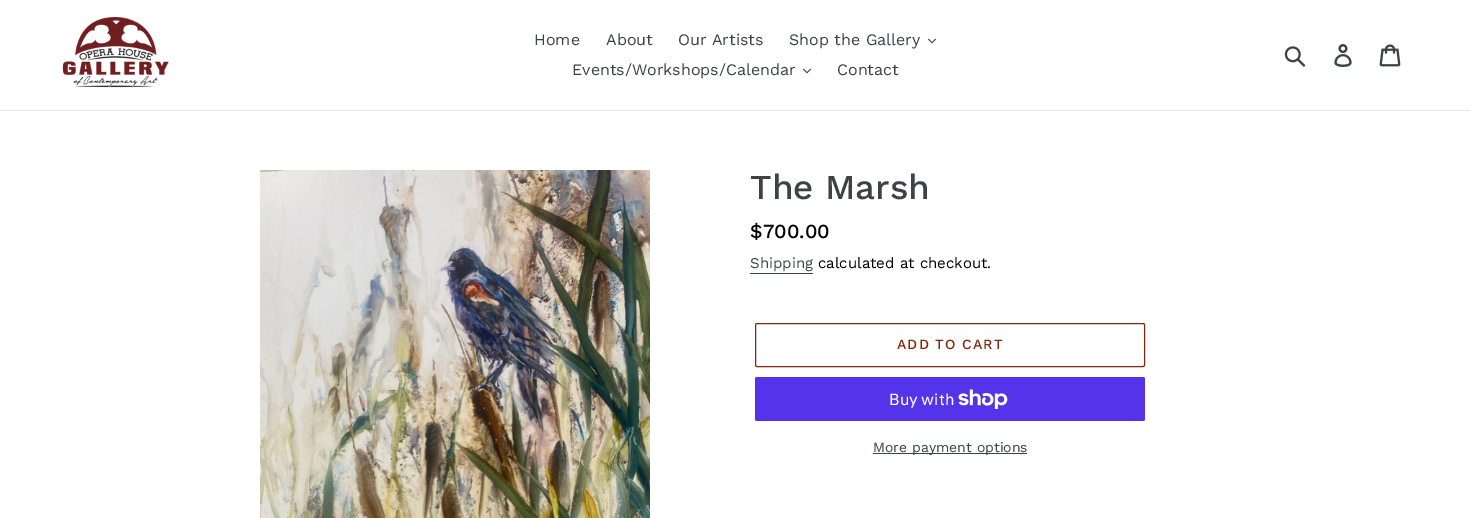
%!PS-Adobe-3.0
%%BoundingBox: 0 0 1470 518
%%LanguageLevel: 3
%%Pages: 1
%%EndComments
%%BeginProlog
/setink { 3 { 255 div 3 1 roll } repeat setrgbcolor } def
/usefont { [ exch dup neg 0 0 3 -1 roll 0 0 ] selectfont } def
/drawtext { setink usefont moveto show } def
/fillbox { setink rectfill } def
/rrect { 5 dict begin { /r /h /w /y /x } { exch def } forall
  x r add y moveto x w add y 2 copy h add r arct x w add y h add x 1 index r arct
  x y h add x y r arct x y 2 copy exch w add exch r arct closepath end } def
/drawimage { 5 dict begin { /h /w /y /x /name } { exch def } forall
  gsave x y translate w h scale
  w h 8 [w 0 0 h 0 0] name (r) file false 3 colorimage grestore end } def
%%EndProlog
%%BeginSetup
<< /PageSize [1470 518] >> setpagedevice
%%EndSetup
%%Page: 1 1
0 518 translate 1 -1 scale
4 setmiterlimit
0 0 1470 518 255 255 255 fillbox
0 110 1470 1 232 233 235 fillbox
(assets/img1.rgb) 62 17 107 71 drawimage
(Home) 534 45 /WorkSans-Regular 16 61 66 70 drawtext
(About) 606 45 /WorkSans-Regular 16 61 66 70 drawtext
(Our Artists) 678 45 /WorkSans-Regular 16 61 66 70 drawtext
(Shop the Gallery) 789 45 /WorkSans-Regular 16 61 66 70 drawtext
(assets/img2.rgb) 928 38 8 6 drawimage
(Events/Workshops/Calendar) 572 75 /WorkSans-Regular 16 61 66 70 drawtext
(assets/img2.rgb) 803 68 8 6 drawimage
(Contact) 837 75 /WorkSans-Regular 16 61 66 70 drawtext
(assets/img3.rgb) 1284 46 22 21 drawimage
(assets/img4.rgb) 1334 44 18 23 drawimage
(assets/img5.rgb) 1379 44 22 23 drawimage
(assets/img6.rgb) 260 170 390 348 drawimage
(The Marsh) 750 199 /WorkSans-Medium 35 61 66 70 drawtext
($700.00) 750 238 /WorkSans-Medium 20 0 0 0 drawtext
(Shipping) 750 268 /WorkSans-Regular 15 61 66 70 drawtext
750 273 63 1 61 66 70 fillbox
(calculated at checkout.) 818 268 /WorkSans-Regular 15 0 0 0 drawtext
128 41 15 setink
755.5 323.5 389 43 1.5 rrect stroke
/WorkSans-Medium 14 usefont
897 349 moveto 1.1 0 (ADD TO CART) ashow
84 51 235 setink
755 377 390 44 2 rrect fill
(Buy with) 889 405 /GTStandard-Regular 16 255 255 255 drawtext
(assets/img7.rgb) 958 389 50 20 drawimage
873 453 154 1 61 66 70 fillbox
(More payment options) 873 452 /WorkSans-Regular 14 61 66 70 drawtext
showpage
%%EOF
